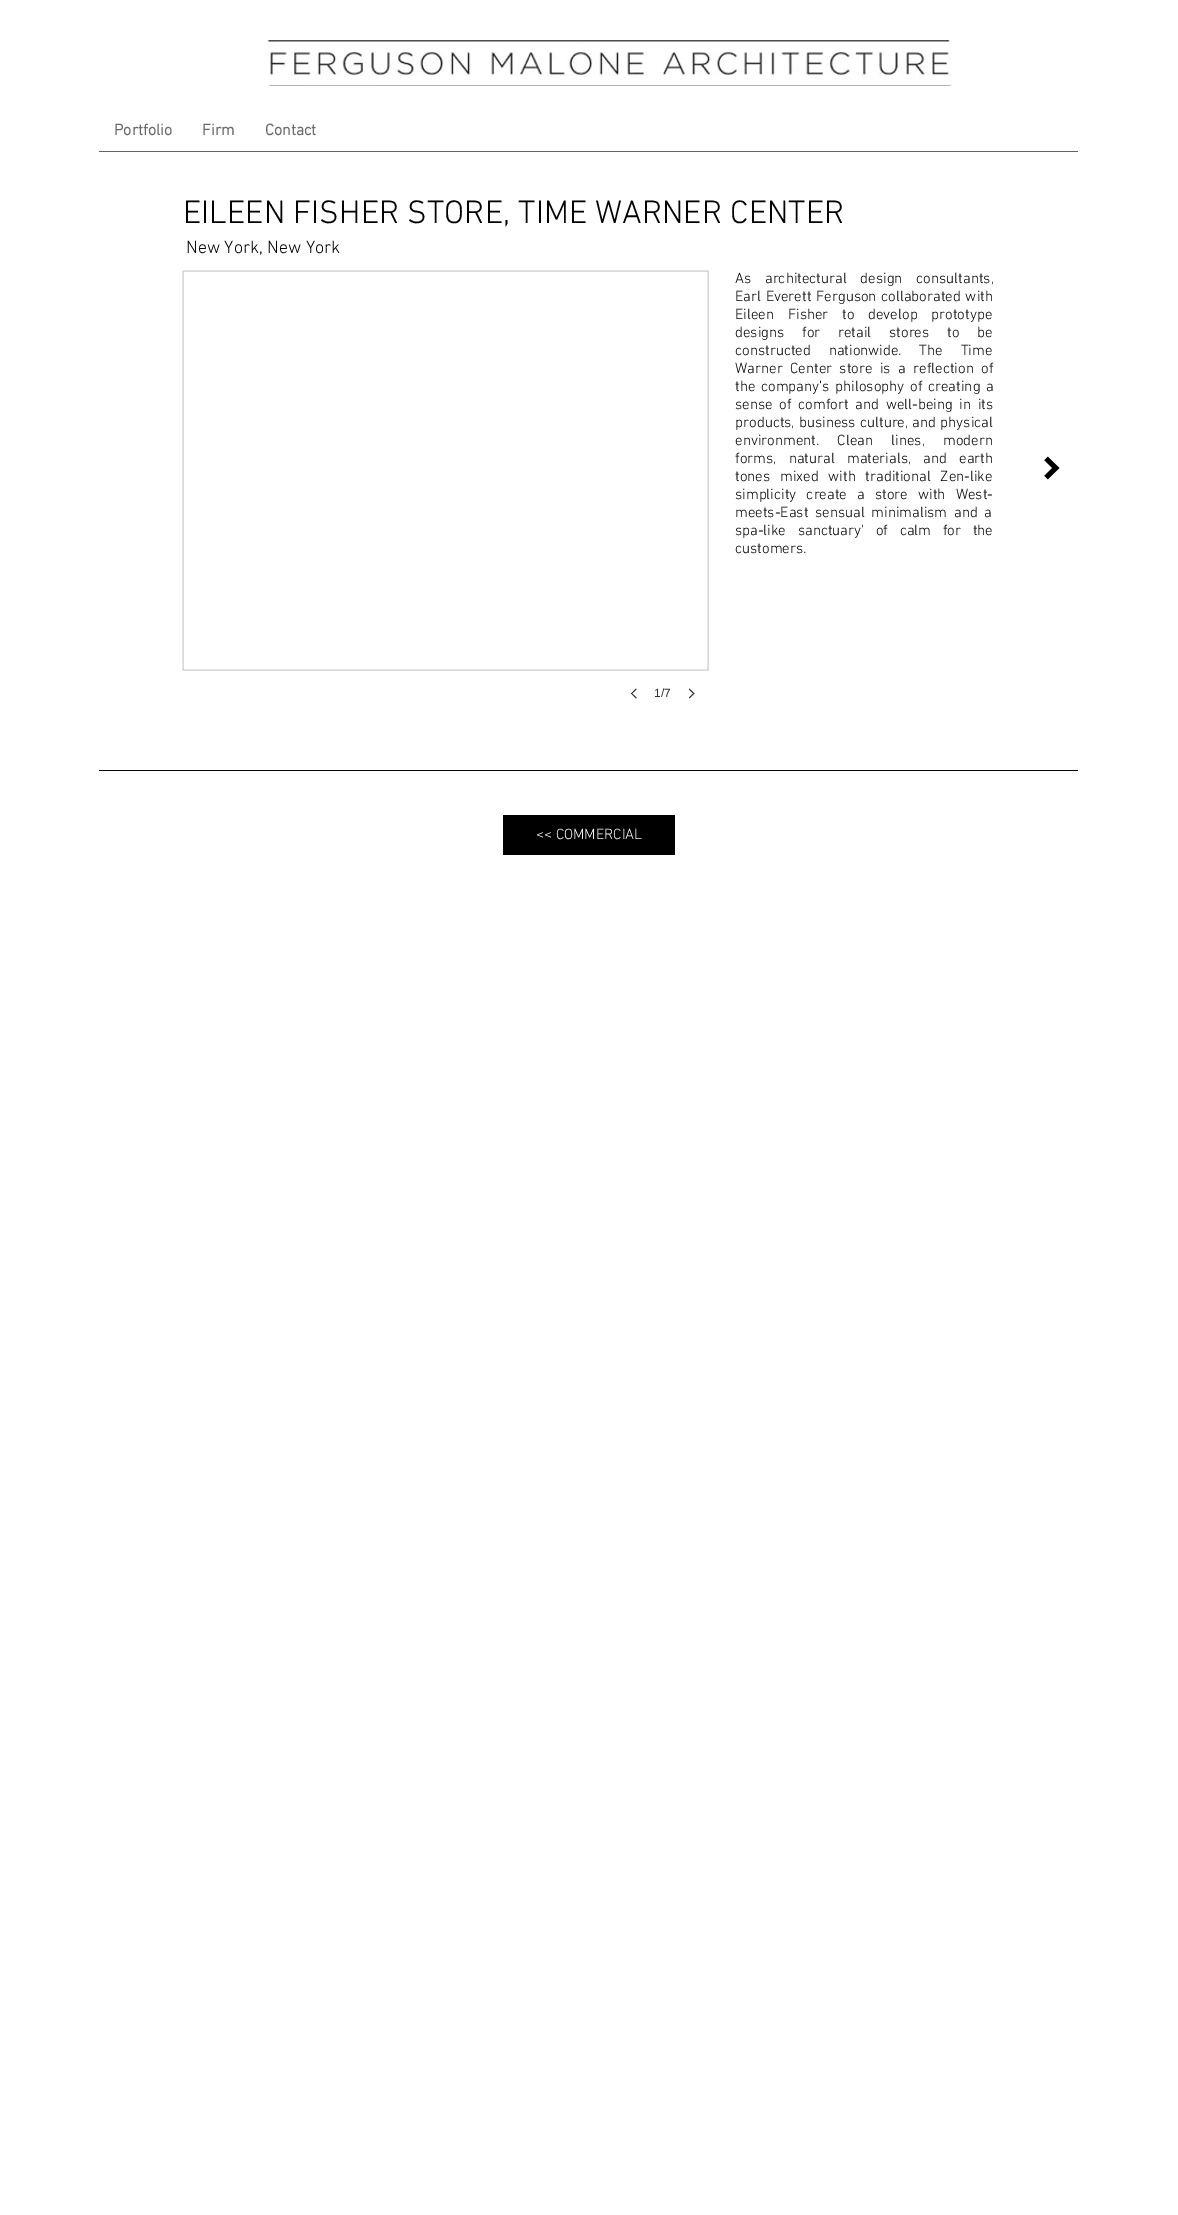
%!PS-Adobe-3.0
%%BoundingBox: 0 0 1178 2215
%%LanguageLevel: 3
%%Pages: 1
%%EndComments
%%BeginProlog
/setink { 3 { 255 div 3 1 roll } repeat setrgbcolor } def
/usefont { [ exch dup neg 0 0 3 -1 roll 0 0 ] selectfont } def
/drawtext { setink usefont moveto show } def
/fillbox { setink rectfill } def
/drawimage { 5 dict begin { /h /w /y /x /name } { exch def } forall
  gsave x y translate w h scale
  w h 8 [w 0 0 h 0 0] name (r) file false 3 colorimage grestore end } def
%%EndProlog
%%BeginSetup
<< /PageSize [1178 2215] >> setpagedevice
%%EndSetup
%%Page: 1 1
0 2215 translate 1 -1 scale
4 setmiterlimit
0 0 1178 2215 255 255 255 fillbox
(assets/img1.rgb) 267 40 685 46 drawimage
(Portfolio) 114 135 /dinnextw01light-Bold 16 105 105 105 drawtext
(Firm) 202 135 /dinnextw01light-Bold 16 105 105 105 drawtext
(Contact) 265 135 /dinnextw01light-Bold 16 105 105 105 drawtext
99 151 979 1 97 97 97 fillbox
(EILEEN FISHER STORE, TIME WARNER CENTER) 183 223 /dinnextw01light-Light 33 0 0 0 drawtext
(New York, New York) 186 253 /dinnextw01light-Light 18 0 0 0 drawtext
204 204 204 setink
708 271 moveto 708 670 lineto 183 670 lineto 183 271 lineto closepath stroke
/dinnextw01light-Light 15 usefont
0 0 0 setink
735 283 moveto 10 0 32 (As architectural design consultants,) widthshow
735 301 moveto 1 0 32 (Earl Everett Ferguson collaborated with) widthshow
735 319 moveto 10 0 32 (Eileen Fisher to develop prototype) widthshow
735 337 moveto 14 0 32 (designs for retail stores to be) widthshow
735 355 moveto 14 0 32 (constructed nationwide. The Time) widthshow
735 373 moveto 3.75 0 32 (Warner Center store is a reflection of) widthshow
735 391 moveto 2 0 32 (the company’s philosophy of creating a) widthshow
735 409 moveto 3 0 32 (sense of comfort and well-being in its) widthshow
735 427 moveto 0.5 0 32 (products, business culture, and physical) widthshow
735 445 moveto 14.5 0 32 (environment. Clean lines, modern) widthshow
735 463 moveto 8.5 0 32 (forms, natural materials, and earth) widthshow
735 481 moveto 6 0 32 (tones mixed with traditional Zen-like) widthshow
735 499 moveto 6.5 0 32 (simplicity create a store with West-) widthshow
735 517 moveto 3 0 32 (meets-East sensual minimalism and a) widthshow
735 535 moveto 8 0 32 (spa-like sanctuary' of calm for the) widthshow
(customers.) 735 553 /dinnextw01light-Light 15 0 0 0 drawtext
(assets/img2.rgb) 1044 456 16 24 drawimage
47 46 46 setink
631 693.5 moveto 636 688.5 lineto 636.5 689.5 lineto 631.5 694 lineto closepath fill
631 693.5 moveto 631.5 693 lineto 636.5 697.5 lineto 636 698.5 lineto closepath fill
(1/7) 654 697 /LiberationSans-Regular 12 47 46 46 drawtext
689 689.5 moveto 689.5 688.5 lineto 694.5 693.5 lineto 693.5 694 lineto closepath fill
689 697.5 moveto 693.5 693 lineto 694.5 693.5 lineto 689.5 698.5 lineto closepath fill
99 770 979 1 0 0 0 fillbox
503 815 172 40 0 0 0 fillbox
(<< COMMERCIAL) 536 839 /dinnextw01light-Light 15 255 255 255 drawtext
showpage
%%EOF
